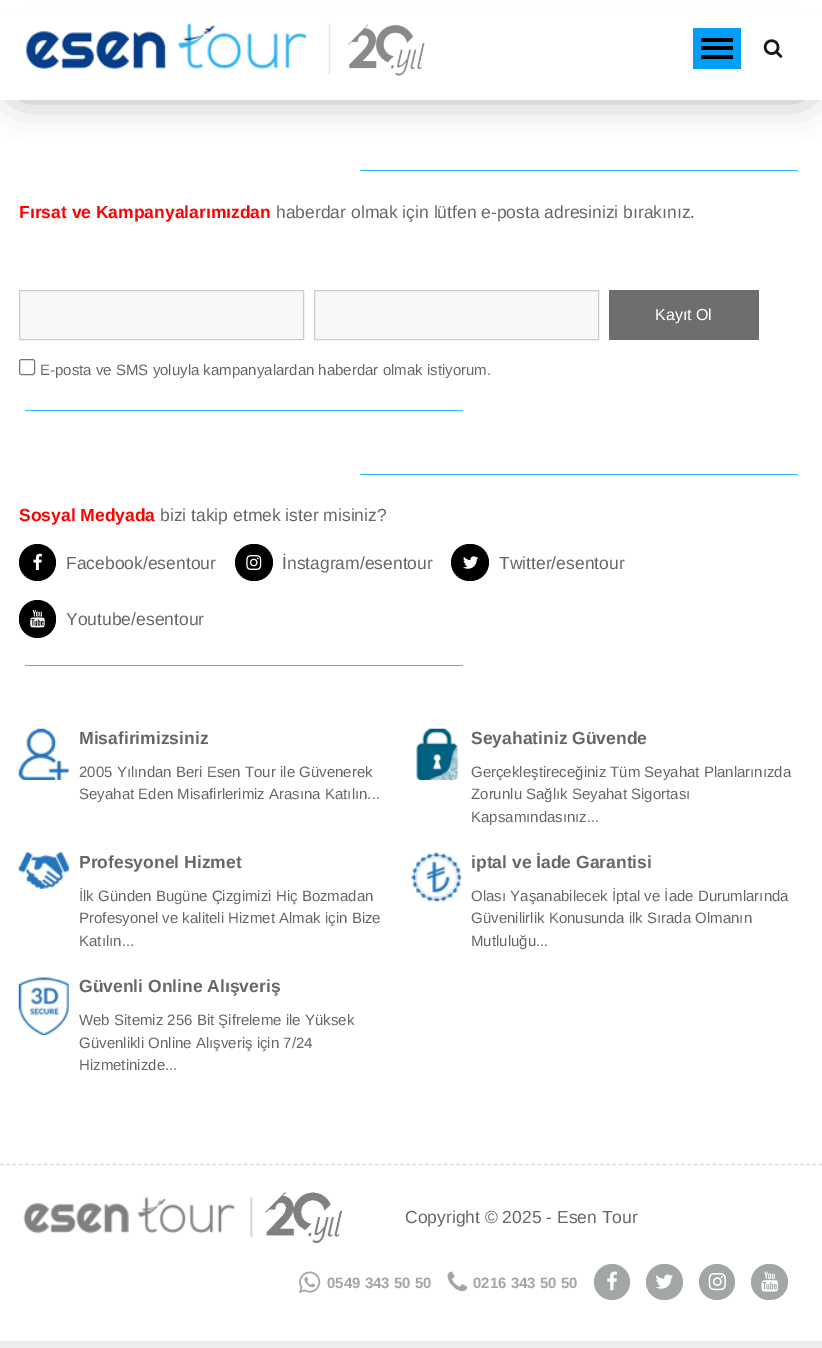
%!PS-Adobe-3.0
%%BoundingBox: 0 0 822 1348
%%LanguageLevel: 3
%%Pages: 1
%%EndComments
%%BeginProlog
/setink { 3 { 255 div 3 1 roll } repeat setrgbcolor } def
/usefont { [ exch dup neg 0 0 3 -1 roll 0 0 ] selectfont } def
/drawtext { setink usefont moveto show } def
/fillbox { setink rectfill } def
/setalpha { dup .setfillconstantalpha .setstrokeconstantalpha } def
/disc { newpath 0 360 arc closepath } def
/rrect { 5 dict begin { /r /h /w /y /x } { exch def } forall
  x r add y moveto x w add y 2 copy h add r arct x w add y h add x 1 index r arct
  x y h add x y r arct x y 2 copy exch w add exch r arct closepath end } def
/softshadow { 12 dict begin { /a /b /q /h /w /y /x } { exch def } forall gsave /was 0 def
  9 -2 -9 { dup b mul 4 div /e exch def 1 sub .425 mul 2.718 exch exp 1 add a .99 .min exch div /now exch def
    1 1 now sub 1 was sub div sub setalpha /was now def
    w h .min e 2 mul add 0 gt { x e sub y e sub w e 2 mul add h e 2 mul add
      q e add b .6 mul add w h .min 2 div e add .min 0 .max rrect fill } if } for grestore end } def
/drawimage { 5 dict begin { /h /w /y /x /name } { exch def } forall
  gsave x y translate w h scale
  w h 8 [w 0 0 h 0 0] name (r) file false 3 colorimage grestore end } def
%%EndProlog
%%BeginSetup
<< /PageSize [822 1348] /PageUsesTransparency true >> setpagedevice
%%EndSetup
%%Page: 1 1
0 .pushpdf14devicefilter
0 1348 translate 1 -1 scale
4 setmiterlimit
0 0 822 1348 255 255 255 fillbox
0 0 0 setink
9 50 805 50 25 19 0.3 softshadow
0 15 822 85 255 255 255 fillbox
(assets/img1.rgb) 26 23 305 52 drawimage
(assets/img2.rgb) 348 24 77 52 drawimage
693 28 48 41 0 158 249 fillbox
0 0 0 setink
701 38 32 4 1 rrect fill
701 46 32 4 1 rrect fill
701 55 32 4 1 rrect fill
(assets/img3.rgb) 763 39 20 19 drawimage
360 170 438 1 50 181 243 fillbox
(Fırsat ve Kampanyalarımızdan) 19 218 /LiberationSans-Bold 17.5 255 0 0 drawtext
(haberdar olmak için lütfen e-posta adresinizi bırakınız.) 276 218 /LiberationSans-Regular 17.5 102 102 102 drawtext
248 248 248 setink
19.5 290.5 moveto 303.5 290.5 lineto 303.5 339.5 lineto 19.5 339.5 lineto closepath gsave fill grestore
204 204 204 setink
stroke
248 248 248 setink
314.5 290.5 moveto 598.5 290.5 lineto 598.5 339.5 lineto 314.5 339.5 lineto closepath gsave fill grestore
204 204 204 setink
stroke
609 290 150 50 110 110 110 fillbox
(Kayıt Ol) 655 320 /LiberationSans-Regular 16 255 255 255 drawtext
118 118 118 setink
19.5 359.5 15 15 2 rrect stroke
(E-posta ve SMS yoluyla kampanyalardan haberdar olmak istiyorum.) 40 375 /LiberationSans-Regular 15 102 102 102 drawtext
25 410 438 1 50 181 243 fillbox
360 474 438 1 50 181 243 fillbox
(Sosyal Medyada) 19 521 /LiberationSans-Bold 17.5 255 0 0 drawtext
(bizi takip etmek ister misiniz?) 160 521 /LiberationSans-Regular 17.5 102 102 102 drawtext
0 0 0 setink
37.5 562.5 18.5 disc fill
(assets/img4.rgb) 33 553 9 17 drawimage
(Facebook/esentour) 66 569 /LiberationSans-Regular 17.5 102 102 102 drawtext
0 0 0 setink
235 544 38 37 18.5 rrect fill
(assets/img5.rgb) 246 555 16 15 drawimage
(İnstagram/esentour) 282 569 /LiberationSans-Regular 17.5 102 102 102 drawtext
0 0 0 setink
451 544 38 37 18.5 rrect fill
(assets/img6.rgb) 463 556 16 13 drawimage
(Twitter/esentour) 499 569 /LiberationSans-Regular 17.5 102 102 102 drawtext
0 0 0 setink
19 600 37 38 18.5 rrect fill
(assets/img7.rgb) 30 610 15 18 drawimage
(Youtube/esentour) 66 625 /LiberationSans-Regular 17.5 102 102 102 drawtext
25 665 438 1 50 181 243 fillbox
(assets/img8.rgb) 18 728 51 52 drawimage
(Misafirimizsiniz) 79 744 /LiberationSans-Bold 17.5 102 102 102 drawtext
(2005 Yılından Beri Esen Tour ile Güvenerek) 79 777 /LiberationSans-Regular 15 102 102 102 drawtext
(Seyahat Eden Misafirlerimiz Arasına Katılın...) 79 799 /LiberationSans-Regular 15 102 102 102 drawtext
(assets/img9.rgb) 416 728 43 52 drawimage
(Seyahatiniz Güvende) 471 744 /LiberationSans-Bold 17.5 102 102 102 drawtext
(Gerçekleştireceğiniz Tüm Seyahat Planlarınızda) 471 777 /LiberationSans-Regular 15 102 102 102 drawtext
(Zorunlu Sağlık Seyahat Sigortası) 471 799 /LiberationSans-Regular 15 102 102 102 drawtext
(Kapsamındasınız...) 471 822 /LiberationSans-Regular 15 102 102 102 drawtext
(assets/img10.rgb) 18 852 51 37 drawimage
(Profesyonel Hizmet) 79 868 /LiberationSans-Bold 17.5 102 102 102 drawtext
(İlk Günden Bugüne Çizgimizi Hiç Bozmadan) 79 901 /LiberationSans-Regular 15 102 102 102 drawtext
(Profesyonel ve kaliteli Hizmet Almak için Bize) 79 923 /LiberationSans-Regular 15 102 102 102 drawtext
(Katılın...) 79 946 /LiberationSans-Regular 15 102 102 102 drawtext
(assets/img11.rgb) 411 852 51 50 drawimage
(iptal ve İade Garantisi) 471 868 /LiberationSans-Bold 17.5 102 102 102 drawtext
(Olası Yaşanabilecek İptal ve İade Durumlarında) 471 901 /LiberationSans-Regular 15 102 102 102 drawtext
(Güvenilirlik Konusunda ilk Sırada Olmanın) 471 923 /LiberationSans-Regular 15 102 102 102 drawtext
(Mutluluğu...) 471 946 /LiberationSans-Regular 15 102 102 102 drawtext
(assets/img12.rgb) 18 977 51 58 drawimage
(Güvenli Online Alışveriş) 79 992 /LiberationSans-Bold 17.5 102 102 102 drawtext
(Web Sitemiz 256 Bit Şifreleme ile Yüksek) 79 1025 /LiberationSans-Regular 15 102 102 102 drawtext
(Güvenlikli Online Alışveriş için 7/24) 79 1048 /LiberationSans-Regular 15 102 102 102 drawtext
(Hizmetinizde...) 79 1070 /LiberationSans-Regular 15 102 102 102 drawtext
220 220 220 setink
1.2 setlinewidth
[3.75 2.5] 0 setdash
0 1164.5 moveto 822.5 1164.5 lineto stroke
(assets/img13.rgb) 23 1196 230 42 drawimage
(assets/img14.rgb) 265 1192 78 51 drawimage
(Copyright © 2025 - Esen Tour) 405 1223 /LiberationSans-Regular 17.5 102 102 102 drawtext
(assets/img15.rgb) 298 1271 23 22 drawimage
(0549 343 50 50) 327 1288 /LiberationSans-Bold 15 163 166 166 drawtext
(assets/img16.rgb) 447 1271 21 21 drawimage
(0216 343 50 50) 473 1288 /LiberationSans-Bold 15 163 166 166 drawtext
612 1282 18 disc fill
(assets/img17.rgb) 607 1271 10 20 drawimage
646 1264 37 36 18 rrect fill
(assets/img18.rgb) 655 1274 18 15 drawimage
717 1282 18 disc fill
(assets/img19.rgb) 708 1273 18 18 drawimage
751 1264 37 36 18 rrect fill
(assets/img20.rgb) 761 1271 18 21 drawimage
0 1341 822 7 237 237 237 fillbox
.poppdf14devicefilter showpage
%%EOF
